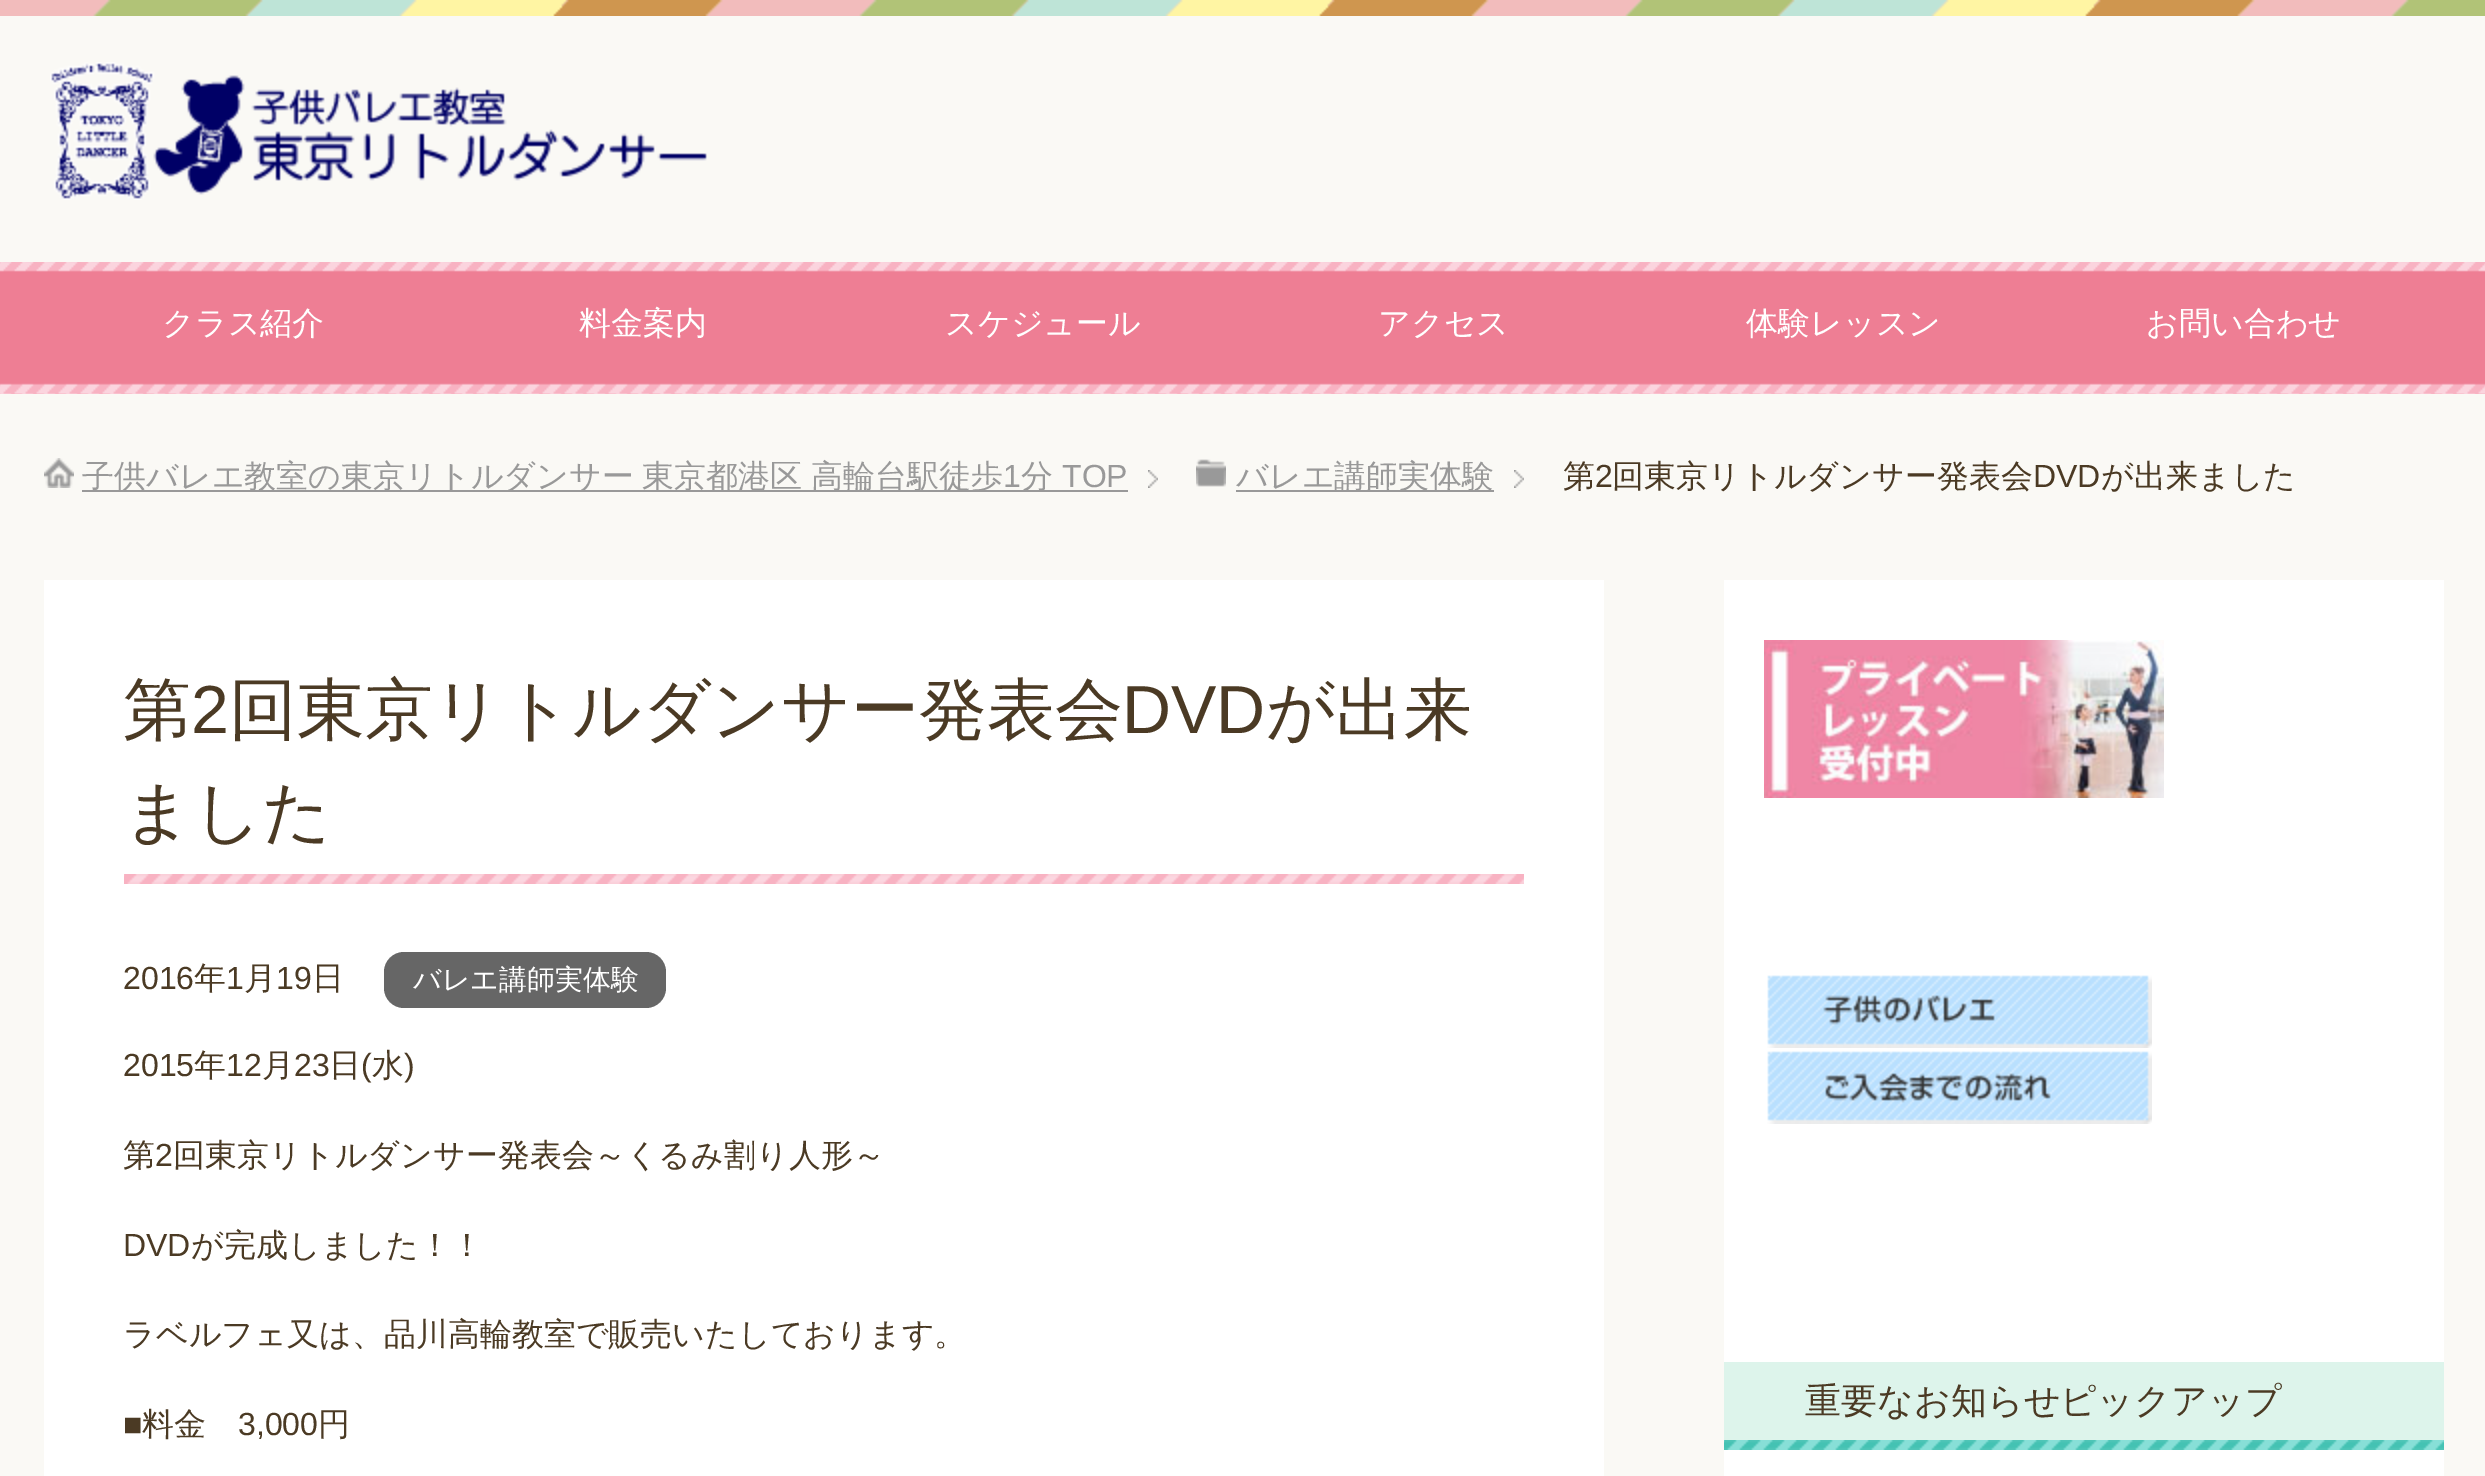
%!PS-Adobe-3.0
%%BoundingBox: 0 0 2485 1476
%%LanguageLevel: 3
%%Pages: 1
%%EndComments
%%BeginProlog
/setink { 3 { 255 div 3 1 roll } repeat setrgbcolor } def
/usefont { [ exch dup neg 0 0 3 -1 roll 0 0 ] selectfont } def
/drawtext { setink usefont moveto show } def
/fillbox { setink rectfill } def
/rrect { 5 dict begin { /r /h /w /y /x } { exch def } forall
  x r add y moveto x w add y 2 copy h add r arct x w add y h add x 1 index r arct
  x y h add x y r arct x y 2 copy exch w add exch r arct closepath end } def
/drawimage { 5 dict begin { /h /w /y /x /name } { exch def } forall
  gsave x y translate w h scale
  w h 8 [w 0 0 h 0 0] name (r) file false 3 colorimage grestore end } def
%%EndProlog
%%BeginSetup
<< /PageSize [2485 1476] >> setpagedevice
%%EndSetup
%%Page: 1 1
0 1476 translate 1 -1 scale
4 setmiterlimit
0 0 2485 1476 250 249 245 fillbox
(assets/img1.rgb) 0 0 2485 16 drawimage
(assets/img2.rgb) 50 62 657 138 drawimage
(assets/img3.rgb) 0 262 2485 132 drawimage
(クラス紹介) 162 334 /WenQuanYiZenHei-Medium 32 255 255 255 drawtext
(料金案内) 579 334 /WenQuanYiZenHei-Medium 32 255 255 255 drawtext
(スケジュール) 945 334 /WenQuanYiZenHei-Medium 32 255 255 255 drawtext
(アクセス) 1378 334 /WenQuanYiZenHei-Medium 32 255 255 255 drawtext
(体験レッスン) 1746 334 /WenQuanYiZenHei-Medium 32 255 255 255 drawtext
(お問い合わせ) 2146 334 /WenQuanYiZenHei-Medium 32 255 255 255 drawtext
(assets/img4.rgb) 1148 470 10 18 drawimage
(assets/img5.rgb) 44 458 30 30 drawimage
82 490 1046 2 153 153 153 fillbox
82 487 moveto -1 0 32 (子供バレエ教室の東京リトルダンサー 東京都港区 高輪台駅徒歩) widthshow
(1) 1003 487 /LiberationSans-Regular 32 153 153 153 drawtext
(分) 1021 487 /WenQuanYiZenHei-Medium 32 153 153 153 drawtext
(TOP) 1062 487 /LiberationSans-Regular 32 153 153 153 drawtext
(assets/img4.rgb) 1514 470 10 18 drawimage
(assets/img6.rgb) 1196 459 30 28 drawimage
1236 490 258 2 153 153 153 fillbox
(バレエ講師実体験) 1236 487 /WenQuanYiZenHei-Medium 32 153 153 153 drawtext
(第) 1563 487 /WenQuanYiZenHei-Medium 32 75 58 36 drawtext
(2) 1595 487 /LiberationSans-Regular 32 75 58 36 drawtext
(回東京リトルダンサー発表会) 1612 487 /WenQuanYiZenHei-Medium 32 75 58 36 drawtext
(DVD) 2033 487 /LiberationSans-Regular 32 75 58 36 drawtext
(が出来ました) 2101 487 /WenQuanYiZenHei-Medium 32 75 58 36 drawtext
44 580 1560 896 255 255 255 fillbox
(assets/img7.rgb) 124 874 1400 10 drawimage
(第) 123 733 /WenQuanYiZenHei-Medium 68 75 58 36 drawtext
(2) 191 733 /LiberationSans-Regular 68 75 58 36 drawtext
(回東京リトルダンサー発表会) 229 733 /WenQuanYiZenHei-Medium 68 75 58 36 drawtext
(DVD) 1122 733 /LiberationSans-Regular 68 75 58 36 drawtext
(が出来) 1266 733 /WenQuanYiZenHei-Medium 68 75 58 36 drawtext
(ました) 123 835 /WenQuanYiZenHei-Medium 68 75 58 36 drawtext
(2016) 123 989 /LiberationSans-Regular 32 75 58 36 drawtext
(年) 194 989 /WenQuanYiZenHei-Medium 32 75 58 36 drawtext
(1) 226 989 /LiberationSans-Regular 32 75 58 36 drawtext
(月) 244 989 /WenQuanYiZenHei-Medium 32 75 58 36 drawtext
(19) 276 989 /LiberationSans-Regular 32 75 58 36 drawtext
(日) 312 989 /WenQuanYiZenHei-Medium 32 75 58 36 drawtext
102 102 102 setink
384 952 282 56 20 rrect fill
(バレエ講師実体験) 413 989 /WenQuanYiZenHei-Medium 28 255 255 255 drawtext
(2015) 123 1076 /LiberationSans-Regular 32 75 58 36 drawtext
(年) 194 1076 /WenQuanYiZenHei-Medium 32 75 58 36 drawtext
(12) 226 1076 /LiberationSans-Regular 32 75 58 36 drawtext
(月) 262 1076 /WenQuanYiZenHei-Medium 32 75 58 36 drawtext
(23) 294 1076 /LiberationSans-Regular 32 75 58 36 drawtext
(日) 329 1076 /WenQuanYiZenHei-Medium 32 75 58 36 drawtext
(\() 361 1076 /LiberationSans-Regular 32 75 58 36 drawtext
(水) 372 1076 /WenQuanYiZenHei-Medium 32 75 58 36 drawtext
(\)) 404 1076 /LiberationSans-Regular 32 75 58 36 drawtext
(第) 123 1166 /WenQuanYiZenHei-Medium 32 75 58 36 drawtext
(2) 155 1166 /LiberationSans-Regular 32 75 58 36 drawtext
(回東京リトルダンサー発表会～くるみ割り人形～) 173 1166 /WenQuanYiZenHei-Medium 32 75 58 36 drawtext
(DVD) 123 1256 /LiberationSans-Regular 32 75 58 36 drawtext
(が完成しました！！) 191 1256 /WenQuanYiZenHei-Medium 32 75 58 36 drawtext
(ラベルフェ又は、品川高輪教室で販売いたしております。) 123 1345 /WenQuanYiZenHei-Medium 32 75 58 36 drawtext
(■) 123 1435 /LiberationSans-Regular 32 75 58 36 drawtext
(料金) 142 1435 /WenQuanYiZenHei-Medium 32 75 58 36 drawtext
(3,000) 238 1435 /LiberationSans-Regular 32 75 58 36 drawtext
(円) 318 1435 /WenQuanYiZenHei-Medium 32 75 58 36 drawtext
1724 580 720 782 255 255 255 fillbox
(assets/img8.rgb) 1764 640 400 158 drawimage
(assets/img9.rgb) 1767 975 385 73 drawimage
(assets/img10.rgb) 1767 1051 385 73 drawimage
1724 1450 720 26 255 255 255 fillbox
1724 1362 720 78 221 244 235 fillbox
(assets/img11.rgb) 1724 1440 720 10 drawimage
(重要なお知らせピックアップ) 1805 1413 /WenQuanYiZenHei-Medium 36 75 58 36 drawtext
showpage
%%EOF
